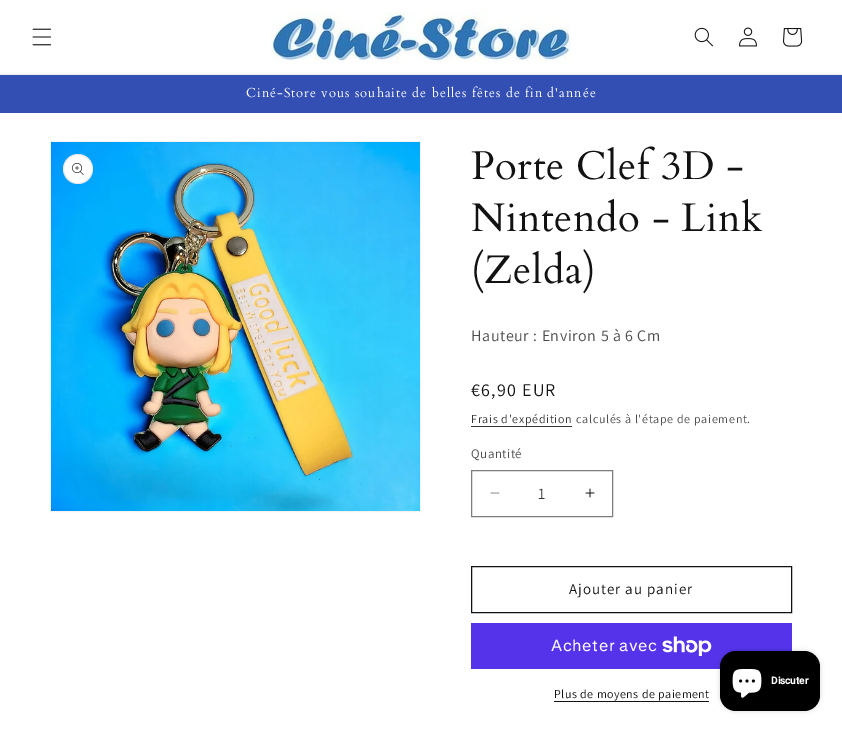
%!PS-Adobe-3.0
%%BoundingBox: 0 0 842 732
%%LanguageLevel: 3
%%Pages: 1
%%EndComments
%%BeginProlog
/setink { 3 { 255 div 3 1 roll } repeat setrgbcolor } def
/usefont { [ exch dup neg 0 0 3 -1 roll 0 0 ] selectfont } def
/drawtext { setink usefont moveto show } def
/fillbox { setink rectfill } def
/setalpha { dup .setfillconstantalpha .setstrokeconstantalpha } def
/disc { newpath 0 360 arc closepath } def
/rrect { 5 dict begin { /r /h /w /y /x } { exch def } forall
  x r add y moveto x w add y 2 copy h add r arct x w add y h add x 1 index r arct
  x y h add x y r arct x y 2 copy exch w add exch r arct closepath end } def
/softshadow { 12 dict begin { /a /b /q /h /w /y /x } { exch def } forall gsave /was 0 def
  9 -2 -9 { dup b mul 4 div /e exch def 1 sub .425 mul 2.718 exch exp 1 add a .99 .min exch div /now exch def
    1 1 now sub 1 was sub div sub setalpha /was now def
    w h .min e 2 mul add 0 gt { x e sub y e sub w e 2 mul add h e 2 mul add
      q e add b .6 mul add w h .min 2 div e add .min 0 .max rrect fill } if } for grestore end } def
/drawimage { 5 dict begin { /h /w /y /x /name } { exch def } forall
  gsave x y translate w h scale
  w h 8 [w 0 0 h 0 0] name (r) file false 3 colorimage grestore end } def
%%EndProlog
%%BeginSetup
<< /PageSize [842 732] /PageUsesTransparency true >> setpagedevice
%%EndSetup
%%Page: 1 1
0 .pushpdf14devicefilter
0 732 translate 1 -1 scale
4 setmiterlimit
0 0 842 732 255 255 255 fillbox
0 74 842 1 236 236 236 fillbox
(assets/img1.rgb) 32 28 20 18 drawimage
(assets/img2.rgb) 271 12 300 51 drawimage
(assets/img3.rgb) 694 27 19 20 drawimage
(assets/img4.rgb) 739 27 18 20 drawimage
(assets/img5.rgb) 783 28 20 19 drawimage
0 75 842 38 51 79 180 fillbox
/Cardo-Regular 13 usefont
255 255 255 setink
246 97 moveto 1 0 (Ciné-Store vous souhaite de belles fêtes de fin d'année) ashow
243 243 243 setink
50.5 141.5 370 370 rectstroke
(assets/img6.rgb) 51 142 369 369 drawimage
255 255 255 setink
78 169 15 disc fill
0.1 setalpha
18 18 18 setink
78 169 14.5 disc stroke
1 setalpha
(assets/img7.rgb) 72 163 12 12 drawimage
/Cardo-Regular 40 usefont
471 179 moveto 0.6 0 (Porte Clef 3D -) ashow
471 231 moveto 0.6 0 (Nintendo - Link) ashow
471 283 moveto 0.6 0 (\(Zelda\)) ashow
/Assistant-Regular 16 usefont
77 77 77 setink
471 341 moveto 0.6 0 (Hauteur : Environ 5 à 6 Cm) ashow
/Assistant-Regular 18 usefont
18 18 18 setink
471 396 moveto 1.25 0 (€6,90 EUR) ashow
/Assistant-Regular 12 usefont
54 54 54 setink
471 423 moveto 0.7 0 (Frais d'expédition) ashow
471 426 101 1 54 54 54 fillbox
77 77 77 setink
576 423 moveto 0.7 0 (calculés à l'étape de paiement.) ashow
/Assistant-Regular 13 usefont
471 458 moveto 0.5 0 (Quantité) ashow
(assets/img8.rgb) 490 492 10 2 drawimage
(assets/img9.rgb) 585 488 10 10 drawimage
125 125 125 setink
471.5 470.5 141 46 rectstroke
(1) 538 499 /Assistant-Regular 16 54 54 54 drawtext
18 18 18 setink
471.5 566.5 320 46 rectstroke
/Assistant-Regular 15 usefont
569 594 moveto 1 0 (Ajouter au panier) ashow
471 623 321 46 84 51 235 fillbox
/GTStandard-Regular 16 usefont
255 255 255 setink
551 651 moveto 0.6 0 (Acheter avec) ashow
(assets/img10.rgb) 662 636 50 20 drawimage
/Assistant-Regular 12 usefont
18 18 18 setink
554 698 moveto 0.5 0 (Plus de moyens de paiement) ashow
554 701 155 1 18 18 18 fillbox
0 0 0 setink
720 651 100 60 16 2.5 0.15 softshadow
720 651 100 60 16 rrect fill
(assets/img11.rgb) 732 669 30 29 drawimage
(Discuter) 771 684 /Roboto-Bold 10 255 255 255 drawtext
.poppdf14devicefilter showpage
%%EOF
